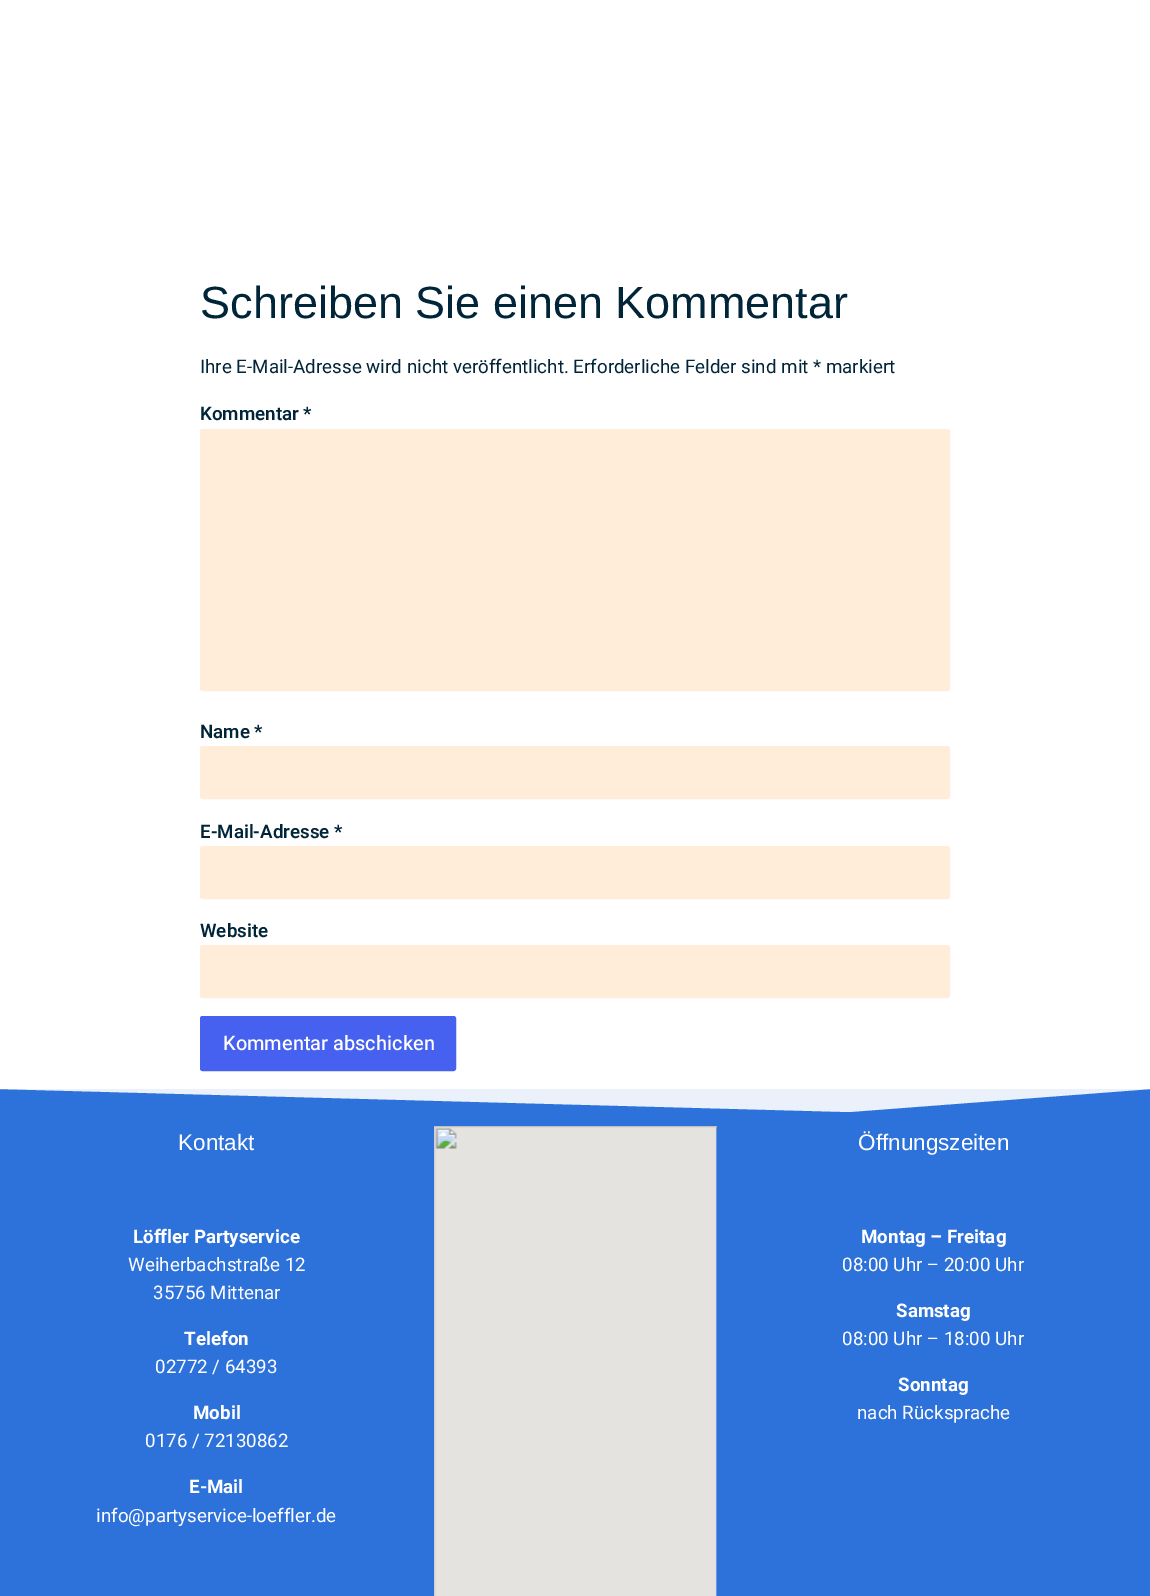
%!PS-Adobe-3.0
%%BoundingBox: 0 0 1150 1596
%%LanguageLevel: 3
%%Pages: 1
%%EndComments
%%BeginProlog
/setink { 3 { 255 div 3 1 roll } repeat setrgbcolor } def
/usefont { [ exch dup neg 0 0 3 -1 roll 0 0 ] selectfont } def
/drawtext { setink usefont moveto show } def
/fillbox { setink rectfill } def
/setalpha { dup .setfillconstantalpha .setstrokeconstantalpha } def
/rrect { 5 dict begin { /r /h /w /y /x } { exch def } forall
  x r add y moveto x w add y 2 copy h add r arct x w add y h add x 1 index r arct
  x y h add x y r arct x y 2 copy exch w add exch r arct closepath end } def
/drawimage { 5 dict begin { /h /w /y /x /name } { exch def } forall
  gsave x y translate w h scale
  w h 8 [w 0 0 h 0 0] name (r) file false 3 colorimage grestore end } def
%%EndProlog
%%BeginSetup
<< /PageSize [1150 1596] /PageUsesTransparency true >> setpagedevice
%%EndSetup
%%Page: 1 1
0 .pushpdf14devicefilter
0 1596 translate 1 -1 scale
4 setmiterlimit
0 0 1150 1596 255 255 255 fillbox
(Schreiben Sie einen Kommentar) 200 318 /LiberationSans-Regular 45 0 36 56 drawtext
(Ihre E-Mail-Adresse wird nicht veröffentlicht. Erforderliche Felder sind mit * markiert) 200 373 /Heebo-Regular 18.75 0 36 56 drawtext
(Kommentar *) 200 420 /Heebo-SemiBold 18.75 0 36 56 drawtext
255 237 217 setink
200.5 429.5 749 261 2 rrect gsave fill grestore
stroke
(Name *) 200 738 /Heebo-SemiBold 18.75 0 36 56 drawtext
255 237 217 setink
200.5 746.5 749 52 2 rrect gsave fill grestore
stroke
(E-Mail-Adresse *) 200 838 /Heebo-SemiBold 18.75 0 36 56 drawtext
255 237 217 setink
200.5 846.5 749 52 2 rrect gsave fill grestore
stroke
(Website) 200 937 /Heebo-SemiBold 18.75 0 36 56 drawtext
255 237 217 setink
200.5 945.5 749 52 2 rrect gsave fill grestore
stroke
70 96 240 setink
201.5 1017.5 253 52 1 rrect gsave fill grestore
3 setlinewidth
stroke
(Kommentar abschicken) 223 1050 /Heebo-Medium 20 255 255 255 drawtext
0 1089 1150 507 45 113 219 fillbox
0.9 setalpha
255 255 255 setink
849 1112 moveto 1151 1089 lineto 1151 1088 lineto -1 1088 lineto -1 1089 lineto closepath fill
1 setalpha
(Kontakt) 178 1150 /LiberationSans-Regular 22.5 255 255 255 drawtext
(Löffler Partyservice) 133 1243 /Heebo-Bold 18.75 255 255 255 drawtext
(Weiherbachstraße 12) 128 1271 /Heebo-Regular 18.75 255 255 255 drawtext
(35756 Mittenar) 153 1299 /Heebo-Regular 18.75 255 255 255 drawtext
(Telefon) 184 1345 /Heebo-Bold 18.75 255 255 255 drawtext
(02772 / 64393) 155 1373 /Heebo-Regular 18.75 255 255 255 drawtext
(Mobil) 193 1419 /Heebo-Bold 18.75 255 255 255 drawtext
(0176 / 72130862) 145 1447 /Heebo-Regular 18.75 255 255 255 drawtext
(E-Mail) 189 1493 /Heebo-Bold 18.75 255 255 255 drawtext
(info@partyservice-loeffler.de) 96 1522 /Heebo-Regular 18.75 255 255 255 drawtext
(assets/img1.rgb) 434 1126 283 470 drawimage
(Öffnungszeiten) 858 1150 /LiberationSans-Regular 22.5 255 255 255 drawtext
(Montag – Freitag) 861 1243 /Heebo-Bold 18.75 255 255 255 drawtext
(08:00 Uhr – 20:00 Uhr) 842 1271 /Heebo-Regular 18.75 255 255 255 drawtext
(Samstag) 896 1317 /Heebo-Bold 18.75 255 255 255 drawtext
(08:00 Uhr – 18:00 Uhr) 842 1345 /Heebo-Regular 18.75 255 255 255 drawtext
(Sonntag) 898 1391 /Heebo-Bold 18.75 255 255 255 drawtext
(nach Rücksprache) 857 1419 /Heebo-Regular 18.75 255 255 255 drawtext
.poppdf14devicefilter showpage
%%EOF
